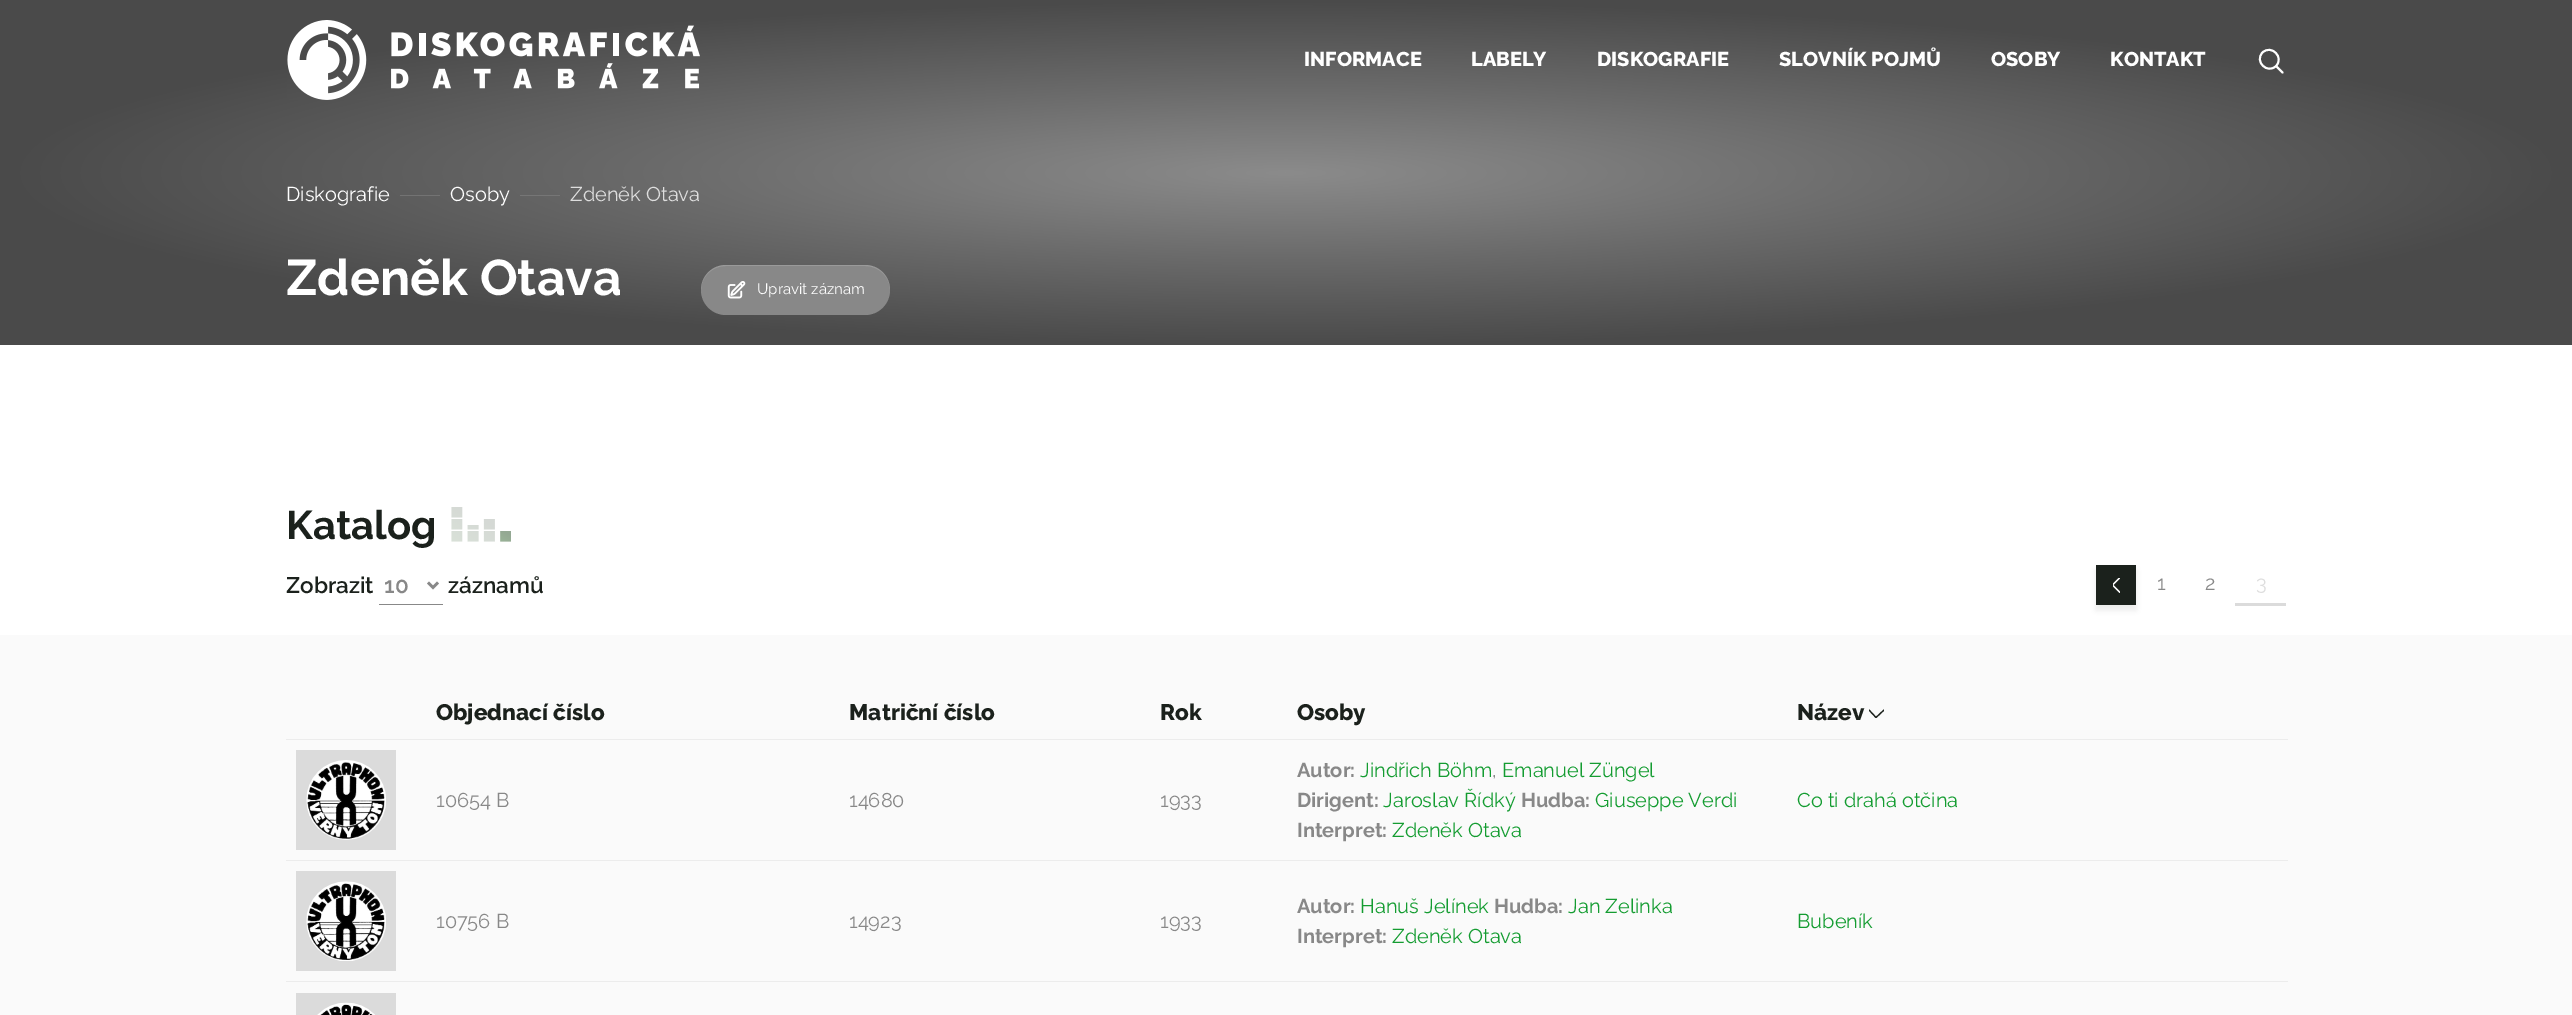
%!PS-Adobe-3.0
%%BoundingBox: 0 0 2572 1015
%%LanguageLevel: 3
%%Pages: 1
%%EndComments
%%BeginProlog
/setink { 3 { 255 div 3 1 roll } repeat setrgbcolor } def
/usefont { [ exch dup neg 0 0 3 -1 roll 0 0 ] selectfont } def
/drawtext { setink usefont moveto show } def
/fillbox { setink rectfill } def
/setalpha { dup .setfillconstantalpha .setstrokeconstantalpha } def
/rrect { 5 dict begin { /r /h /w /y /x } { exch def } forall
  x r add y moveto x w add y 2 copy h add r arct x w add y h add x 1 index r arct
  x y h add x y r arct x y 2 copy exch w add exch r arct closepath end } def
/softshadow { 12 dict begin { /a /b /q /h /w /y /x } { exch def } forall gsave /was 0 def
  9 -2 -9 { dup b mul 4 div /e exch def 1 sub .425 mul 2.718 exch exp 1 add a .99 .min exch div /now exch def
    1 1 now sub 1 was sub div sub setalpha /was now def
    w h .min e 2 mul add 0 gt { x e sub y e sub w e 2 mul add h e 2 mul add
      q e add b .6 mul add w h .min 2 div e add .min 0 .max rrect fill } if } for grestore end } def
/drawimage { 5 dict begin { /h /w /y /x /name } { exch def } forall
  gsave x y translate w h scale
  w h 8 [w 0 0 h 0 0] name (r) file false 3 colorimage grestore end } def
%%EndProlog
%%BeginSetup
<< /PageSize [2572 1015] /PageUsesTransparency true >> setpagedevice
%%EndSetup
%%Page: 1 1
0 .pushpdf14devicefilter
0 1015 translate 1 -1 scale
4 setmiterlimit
0 0 2572 1015 255 255 255 fillbox
gsave 0 0 moveto 2572 0 lineto 2572 345 lineto 0 345 lineto closepath clip newpath 1286 173 translate 1286 173 scale
<< /ShadingType 3 /ColorSpace /DeviceRGB /Coords [0 0 0 0 0 1] /Extend [true true] /Function << /FunctionType 2 /Domain [0 1] /C0 [0.545 0.545 0.545] /C1 [0.29 0.29 0.29] /N 1 >> >> shfill grestore
(assets/img1.rgb) 287 20 413 80 drawimage
(INFORMACE) 1304 66 /Raleway-ExtraBold 20 255 255 255 drawtext
(LABELY) 1471 66 /Raleway-ExtraBold 20 255 255 255 drawtext
(DISKOGRAFIE) 1597 66 /Raleway-ExtraBold 20 255 255 255 drawtext
(SLOVNÍK POJMŮ) 1779 66 /Raleway-ExtraBold 20 255 255 255 drawtext
(OSOBY) 1991 66 /Raleway-ExtraBold 20 255 255 255 drawtext
(KONTAKT) 2110 66 /Raleway-ExtraBold 20 255 255 255 drawtext
1.9 setlinewidth
1 setlinecap
1 setlinejoin
2282.5 72.5 moveto 2276 66 lineto 2276 66 moveto 2284.5 57.5 2271.5 44 2262.5 52.5 curveto 2254 61.5 2267.5 74.5 2276 66 curveto closepath stroke
(Diskografie) 286 201 /Raleway-Regular 20 255 255 255 drawtext
400 195 40 1 115 115 115 fillbox
(Osoby) 450 201 /Raleway-Regular 20 255 255 255 drawtext
520 195 40 1 118 118 118 fillbox
(Zdeněk Otava) 570 201 /Raleway-Regular 20 222 222 222 drawtext
(Zdeněk Otava) 286 295 /Raleway-Bold 50 255 255 255 drawtext
136 136 136 setink
701 265 189 50 25 rrect fill
0.15 setalpha
255 255 255 setink
726 266 moveto 865 266 lineto 879 266 890 277 890 290 curveto 890 276 879 265 865 265 curveto 726 265 lineto 712 265 701 276 701 290 curveto 701 277 712 266 726 266 curveto closepath fill
1 setalpha
(assets/img2.rgb) 727 281 19 18 drawimage
(Upravit záznam) 757 294 /Raleway-Regular 15 255 255 255 drawtext
(Katalog) 286 539 /Raleway-Bold 40 27 33 28 drawtext
(assets/img3.rgb) 451 507 60 35 drawimage
(Zobrazit) 286 593 /Raleway-SemiBold 22.5 27 33 28 drawtext
379 604 64 1 136 136 136 fillbox
2.5 setlinewidth
0 setlinecap
0 setlinejoin
428 582.5 moveto 433 587.5 lineto 438 582.5 lineto stroke
(10) 384 593 /Raleway-SemiBold 22.5 136 136 136 drawtext
(záznamů) 448 593 /Raleway-SemiBold 22.5 27 33 28 drawtext
2096 570 40 40 0 2.5 0.08 softshadow
2096 565 40 40 27 33 28 fillbox
gsave
2113 578 7 15 rectclip
255 255 255 setink
1.2 setlinewidth
1 setlinecap
1 setlinejoin
2120 577.5 moveto 2112.5 585 lineto 2120 592.5 lineto stroke
grestore
(1) 2157 590 /Raleway-Regular 20 136 136 136 drawtext
(2) 2205 590 /Raleway-Regular 20 136 136 136 drawtext
2235 603 51 3 219 219 219 fillbox
(3) 2256 590 /Raleway-Regular 20 222 222 222 drawtext
0 635 2572 380 250 250 250 fillbox
(Objednací číslo) 436 720 /Raleway-ExtraBold 22.5 27 33 28 drawtext
(Matriční číslo) 849 720 /Raleway-ExtraBold 22.5 27 33 28 drawtext
(Rok) 1160 720 /Raleway-ExtraBold 22.5 27 33 28 drawtext
(Osoby) 1297 720 /Raleway-ExtraBold 22.5 27 33 28 drawtext
286 739 2002 1 236 236 236 fillbox
(Název) 1797 720 /Raleway-ExtraBold 22.5 27 33 28 drawtext
gsave
1869 699 15 30 rectclip
1.2 setlinewidth
1 setlinecap
1 setlinejoin
1869 710 moveto 1876 717.5 lineto 1884 710 lineto stroke
grestore
296 750 100 100 219 219 219 fillbox
(assets/img4.rgb) 306 760 80 80 drawimage
(10654 B) 436 807 /Raleway-Regular 20 136 136 136 drawtext
(14680) 849 807 /Raleway-Regular 20 136 136 136 drawtext
(1933) 1160 807 /Raleway-Regular 20 136 136 136 drawtext
(Autor:) 1297 777 /Raleway-Bold 20 136 136 136 drawtext
(Jindřich Böhm) 1360 777 /Raleway-Regular 20 20 156 49 drawtext
(,) 1492 777 /Raleway-Regular 20 136 136 136 drawtext
(Emanuel Züngel) 1502 777 /Raleway-Regular 20 20 156 49 drawtext
(Dirigent:) 1297 807 /Raleway-Bold 20 136 136 136 drawtext
(Jaroslav Řídký) 1383 807 /Raleway-Regular 20 20 156 49 drawtext
(Hudba:) 1521 807 /Raleway-Bold 20 136 136 136 drawtext
(Giuseppe Verdi) 1595 807 /Raleway-Regular 20 20 156 49 drawtext
(Interpret:) 1297 837 /Raleway-Bold 20 136 136 136 drawtext
(Zdeněk Otava) 1392 837 /Raleway-Regular 20 20 156 49 drawtext
286 860 2002 1 236 236 236 fillbox
(Co ti drahá otčina) 1797 807 /Raleway-Regular 20 20 156 49 drawtext
296 871 100 100 219 219 219 fillbox
(assets/img5.rgb) 306 881 80 80 drawimage
(10756 B) 436 928 /Raleway-Regular 20 136 136 136 drawtext
(14923) 849 928 /Raleway-Regular 20 136 136 136 drawtext
(1933) 1160 928 /Raleway-Regular 20 136 136 136 drawtext
(Autor:) 1297 913 /Raleway-Bold 20 136 136 136 drawtext
(Hanuš Jelínek) 1360 913 /Raleway-Regular 20 20 156 49 drawtext
(Hudba:) 1494 913 /Raleway-Bold 20 136 136 136 drawtext
(Jan Zelinka) 1568 913 /Raleway-Regular 20 20 156 49 drawtext
(Interpret:) 1297 943 /Raleway-Bold 20 136 136 136 drawtext
(Zdeněk Otava) 1392 943 /Raleway-Regular 20 20 156 49 drawtext
286 981 2002 1 236 236 236 fillbox
(Bubeník) 1797 928 /Raleway-Regular 20 20 156 49 drawtext
296 993 100 22 219 219 219 fillbox
(assets/img6.rgb) 317 1002 58 13 drawimage
.poppdf14devicefilter showpage
%%EOF
